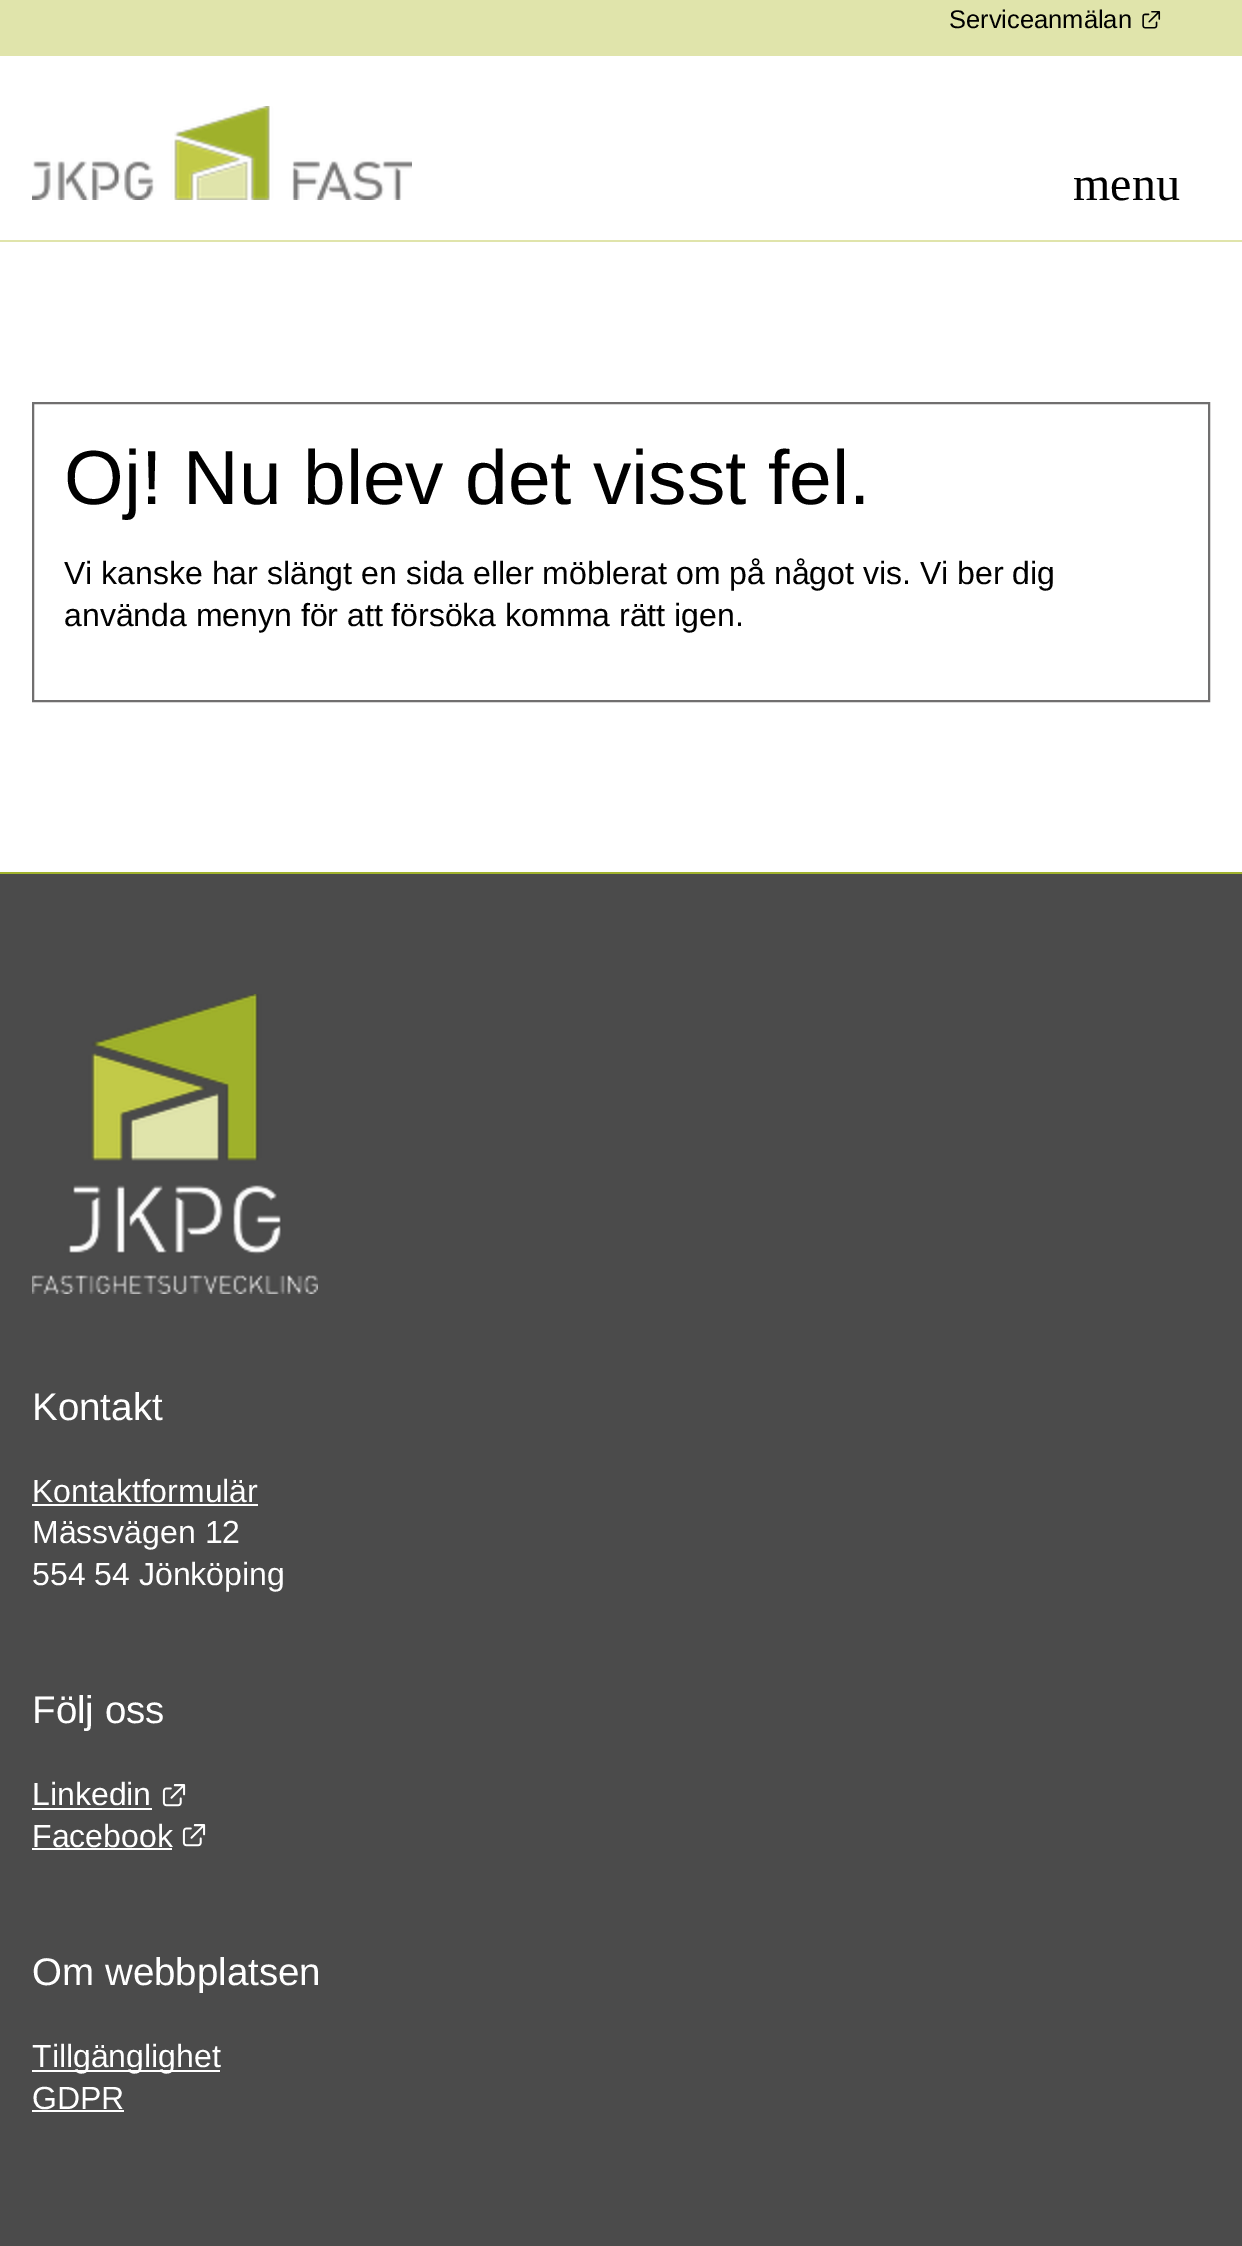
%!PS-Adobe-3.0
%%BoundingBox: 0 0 1242 2246
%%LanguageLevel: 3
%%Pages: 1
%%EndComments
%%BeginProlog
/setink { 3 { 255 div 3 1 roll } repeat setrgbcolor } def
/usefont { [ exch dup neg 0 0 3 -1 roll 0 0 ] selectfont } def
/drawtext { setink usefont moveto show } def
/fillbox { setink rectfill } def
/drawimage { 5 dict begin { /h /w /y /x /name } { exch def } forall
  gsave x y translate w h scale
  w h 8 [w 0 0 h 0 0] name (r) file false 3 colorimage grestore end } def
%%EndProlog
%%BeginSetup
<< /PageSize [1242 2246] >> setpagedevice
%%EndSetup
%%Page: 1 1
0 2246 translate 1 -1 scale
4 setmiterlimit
0 0 1242 2246 255 255 255 fillbox
0 0 1242 56 224 228 171 fillbox
(Serviceanmälan) 949 28 /LiberationSans-Regular 25.5 0 0 0 drawtext
(assets/img1.rgb) 1142 11 19 18 drawimage
0 240 1242 2 224 228 171 fillbox
(assets/img2.rgb) 32 106 380 94 drawimage
(menu) 1073 200 /LiberationSerif-Regular 48 0 0 0 drawtext
112 111 111 setink
2 setlinewidth
33 403 1176 298 rectstroke
(Oj! Nu blev det visst fel.) 64 504 /LiberationSans-Regular 76.75 0 0 0 drawtext
(Vi kanske har slängt en sida eller möblerat om på något vis. Vi ber dig) 64 584 /LiberationSans-Regular 32 0 0 0 drawtext
(använda menyn för att försöka komma rätt igen.) 64 626 /LiberationSans-Regular 32 0 0 0 drawtext
0 874 1242 1372 75 75 75 fillbox
0 872 1242 2 160 178 45 fillbox
(assets/img3.rgb) 32 994 286 300 drawimage
(Kontakt) 32 1420 /LiberationSans-Regular 38.5 255 255 255 drawtext
(Kontaktformulär) 32 1502 /LiberationSans-Regular 32 255 255 255 drawtext
32 1504 226 2 255 255 255 fillbox
(Mässvägen 12) 32 1543 /LiberationSans-Regular 32 255 255 255 drawtext
(554 54 Jönköping) 32 1585 /LiberationSans-Regular 32 255 255 255 drawtext
(Följ oss) 32 1723 /LiberationSans-Regular 38.5 255 255 255 drawtext
(Linkedin) 32 1805 /LiberationSans-Regular 32 255 255 255 drawtext
32 1808 120 2 255 255 255 fillbox
(assets/img4.rgb) 162 1784 24 23 drawimage
(Facebook) 32 1847 /LiberationSans-Regular 32 255 255 255 drawtext
32 1848 140 2 255 255 255 fillbox
(assets/img4.rgb) 182 1824 24 23 drawimage
(Om webbplatsen) 32 1985 /LiberationSans-Regular 38.5 255 255 255 drawtext
32 2070 188 2 255 255 255 fillbox
(Tillgänglighet) 32 2067 /LiberationSans-Regular 32 255 255 255 drawtext
(GDPR) 32 2109 /LiberationSans-Regular 32 255 255 255 drawtext
32 2110 92 2 255 255 255 fillbox
showpage
%%EOF
